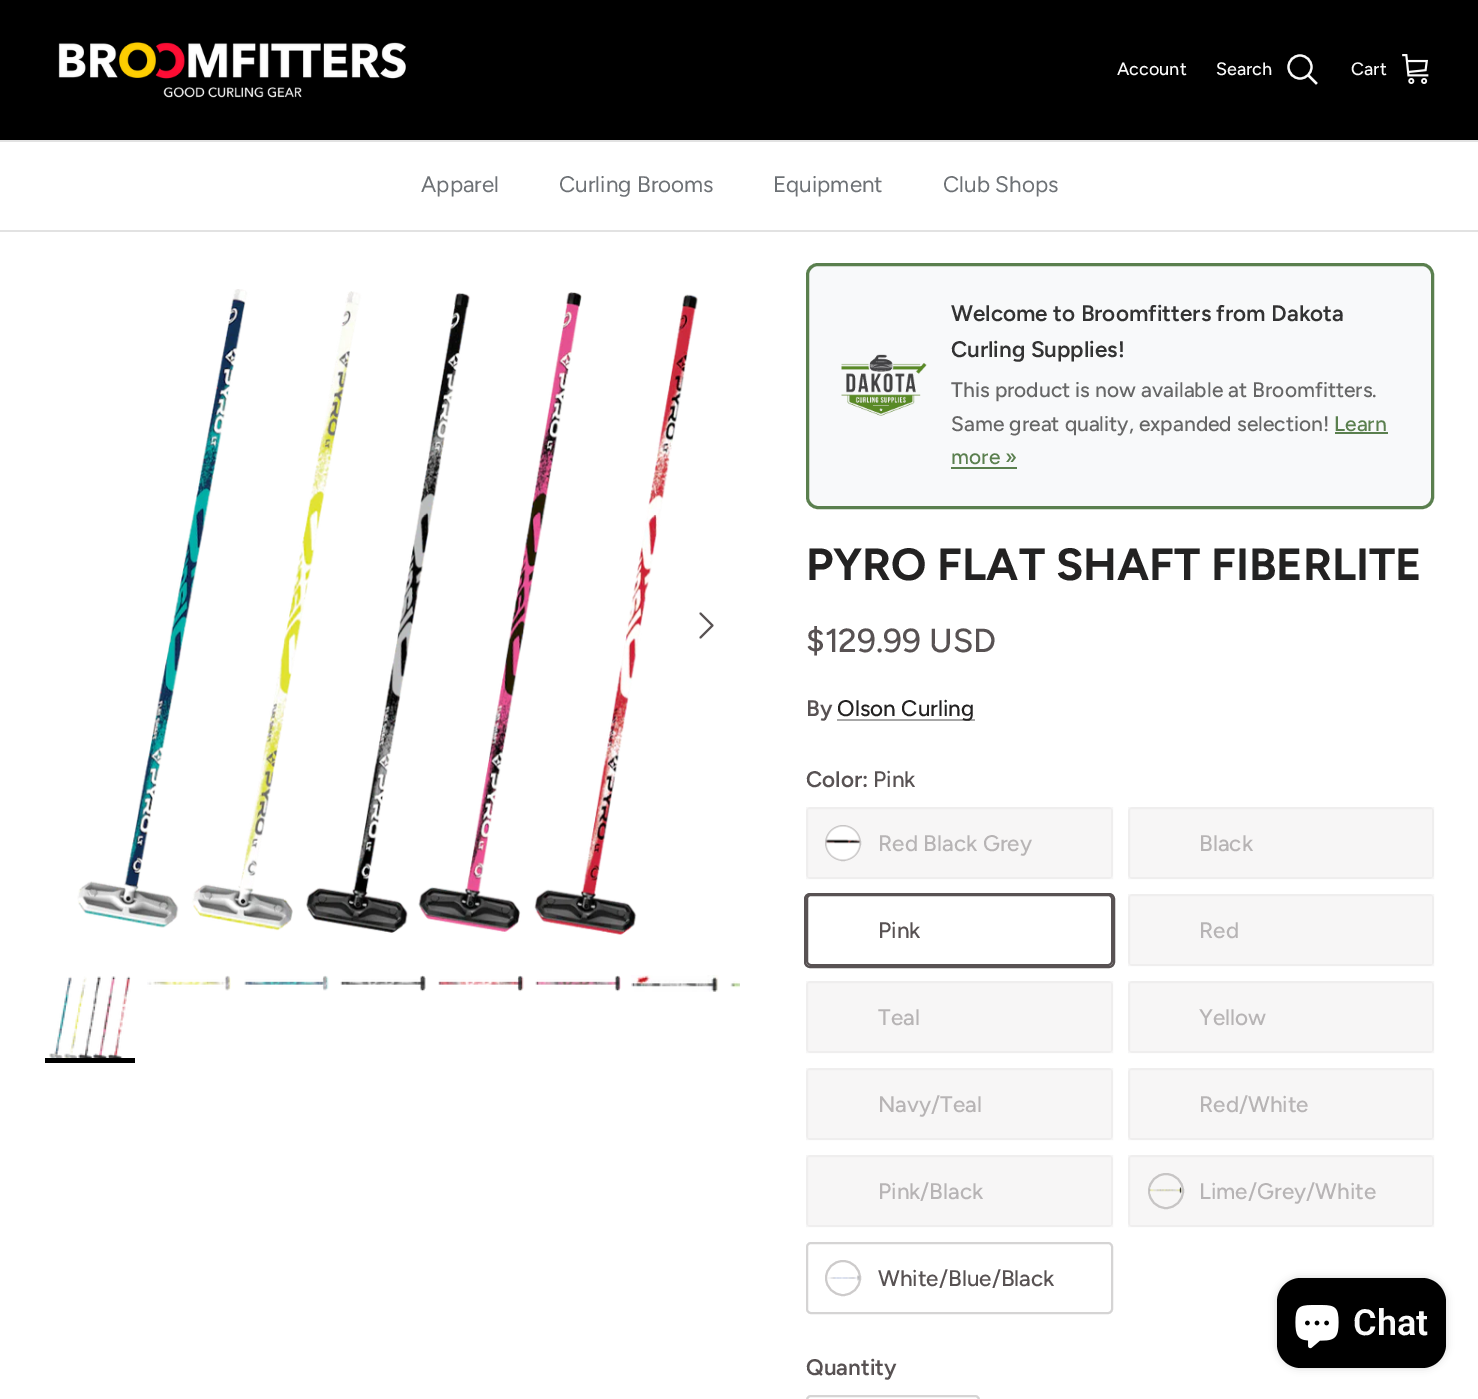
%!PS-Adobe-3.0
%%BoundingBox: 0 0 1478 1399
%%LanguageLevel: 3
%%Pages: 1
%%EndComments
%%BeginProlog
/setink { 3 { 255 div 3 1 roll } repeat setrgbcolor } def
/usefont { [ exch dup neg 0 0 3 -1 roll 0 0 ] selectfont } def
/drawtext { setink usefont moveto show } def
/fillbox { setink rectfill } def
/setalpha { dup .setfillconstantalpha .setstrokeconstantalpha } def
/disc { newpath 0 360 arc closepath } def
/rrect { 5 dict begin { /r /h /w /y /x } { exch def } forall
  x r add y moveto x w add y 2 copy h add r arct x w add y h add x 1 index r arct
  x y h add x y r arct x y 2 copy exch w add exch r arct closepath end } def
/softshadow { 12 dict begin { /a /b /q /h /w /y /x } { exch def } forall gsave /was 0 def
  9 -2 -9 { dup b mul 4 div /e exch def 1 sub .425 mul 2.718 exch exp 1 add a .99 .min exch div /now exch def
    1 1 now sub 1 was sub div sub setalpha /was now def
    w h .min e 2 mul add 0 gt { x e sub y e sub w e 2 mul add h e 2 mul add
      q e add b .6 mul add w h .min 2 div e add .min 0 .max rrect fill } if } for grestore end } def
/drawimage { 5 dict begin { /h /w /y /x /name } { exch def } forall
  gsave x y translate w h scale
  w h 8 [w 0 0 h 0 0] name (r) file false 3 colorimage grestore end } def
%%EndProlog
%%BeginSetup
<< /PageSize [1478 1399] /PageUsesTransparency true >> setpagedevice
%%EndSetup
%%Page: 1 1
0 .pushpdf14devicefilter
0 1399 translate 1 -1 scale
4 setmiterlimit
0 0 1478 1399 255 255 255 fillbox
0 0 1478 140 0 0 0 fillbox
0 140 1478 2 226 226 226 fillbox
(assets/img1.rgb) 58 42 348 56 drawimage
(Account) 1117 75 /Figtree-Medium 18 250 250 250 drawtext
(Search) 1216 75 /Figtree-Medium 18 250 250 250 drawtext
2.2 setlinewidth
1300 67 11.5 disc stroke
2 setlinecap
1309.5 76.5 moveto 1316 83 lineto stroke
(Cart) 1351 75 /Figtree-Medium 18 250 250 250 drawtext
(assets/img2.rgb) 1402 54 27 30 drawimage
0 230 1478 2 226 226 226 fillbox
(Apparel) 421 192 /Figtree-Regular 22.5 109 113 117 drawtext
(Curling Brooms) 559 192 /Figtree-Regular 22.5 109 113 117 drawtext
(Equipment) 773 192 /Figtree-Regular 22.5 109 113 117 drawtext
(Club Shops) 943 192 /Figtree-Regular 22.5 109 113 117 drawtext
(assets/img3.rgb) 77 289 621 646 drawimage
88 82 83 setink
2 setlinewidth
1 setlinecap
1 setlinejoin
700.5 637.5 moveto 712.5 625.5 lineto 700.5 613.5 lineto stroke
(assets/img4.rgb) 49 976 82 82 drawimage
45 1058 90 5 0 0 0 fillbox
(assets/img5.rgb) 147 975 84 16 drawimage
(assets/img6.rgb) 244 975 85 16 drawimage
(assets/img7.rgb) 340 975 86 17 drawimage
(assets/img8.rgb) 438 975 86 17 drawimage
(assets/img9.rgb) 535 975 86 17 drawimage
(assets/img10.rgb) 631 975 88 17 drawimage
(assets/img11.rgb) 730 981 10 7 drawimage
248 249 250 setink
807.5 264.5 625 243 10.5 rrect gsave fill grestore
90 127 78 setink
3 setlinewidth
0 setlinecap
0 setlinejoin
stroke
(assets/img12.rgb) 841 354 86 62 drawimage
(Welcome to Broomfitters from Dakota) 951 321 /Figtree-SemiBold 22.5 51 51 51 drawtext
(Curling Supplies!) 951 357 /Figtree-SemiBold 22.5 51 51 51 drawtext
(This product is now available at Broomfitters.) 951 397 /Figtree-Medium 21 102 102 102 drawtext
(Same great quality, expanded selection!) 951 431 /Figtree-Medium 21 102 102 102 drawtext
(Learn) 1334 431 /Figtree-Medium 21 90 127 78 drawtext
1335 432 53 2 90 127 78 fillbox
(more ») 951 464 /Figtree-Medium 21 90 127 78 drawtext
951 467 66 2 90 127 78 fillbox
(PYRO FLAT SHAFT FIBERLITE) 806 580 /Figtree-Bold 45 35 34 34 drawtext
($129.99 USD) 806 652 /Figtree-Medium 33.25 88 82 83 drawtext
(By) 806 716 /Figtree-SemiBold 22.5 88 82 83 drawtext
837 719 138 2 167 167 167 fillbox
(Olson Curling) 837 716 /Figtree-Medium 22.5 35 34 34 drawtext
(Color:) 806 787 /Figtree-SemiBold 22.5 88 82 83 drawtext
(Pink) 873 787 /Figtree-Medium 22.5 88 82 83 drawtext
247 246 246 setink
806 807 307 72 5 rrect fill
0.05 setalpha
88 82 83 setink
2 setlinewidth
807 808 305 70 rectstroke
1 setalpha
199 197 197 setink
843 843 17 disc stroke
(assets/img13.rgb) 826 826 34 34 drawimage
(Red Black Grey) 878 851 /Figtree-Medium 22.5 183 180 181 drawtext
247 246 246 setink
1128 807 306 72 5 rrect fill
0.05 setalpha
88 82 83 setink
1129 808 304 70 rectstroke
1 setalpha
(Black) 1199 851 /Figtree-Medium 22.5 183 180 181 drawtext
88 82 83 setink
805 894 309 73 5 rrect stroke
255 255 255 setink
807 895 305 70 4 rrect gsave fill grestore
88 82 83 setink
stroke
(Pink) 878 938 /Figtree-Medium 22.5 88 82 83 drawtext
247 246 246 setink
1128 894 306 72 5 rrect fill
0.05 setalpha
88 82 83 setink
1129 895 304 70 rectstroke
1 setalpha
(Red) 1199 938 /Figtree-Medium 22.5 183 180 181 drawtext
247 246 246 setink
806 981 307 72 5 rrect fill
0.05 setalpha
88 82 83 setink
807 982 305 70 rectstroke
1 setalpha
(Teal) 878 1025 /Figtree-Medium 22.5 183 180 181 drawtext
247 246 246 setink
1128 981 306 72 5 rrect fill
0.05 setalpha
88 82 83 setink
1129 982 304 70 rectstroke
1 setalpha
(Yellow) 1199 1025 /Figtree-Medium 22.5 183 180 181 drawtext
247 246 246 setink
806 1068 307 72 5 rrect fill
0.05 setalpha
88 82 83 setink
807 1069 305 70 rectstroke
1 setalpha
(Navy/Teal) 878 1112 /Figtree-Medium 22.5 183 180 181 drawtext
247 246 246 setink
1128 1068 306 72 5 rrect fill
0.05 setalpha
88 82 83 setink
1129 1069 304 70 rectstroke
1 setalpha
(Red/White) 1199 1112 /Figtree-Medium 22.5 183 180 181 drawtext
247 246 246 setink
806 1155 307 72 5 rrect fill
0.05 setalpha
88 82 83 setink
807 1156 305 70 rectstroke
1 setalpha
(Pink/Black) 878 1199 /Figtree-Medium 22.5 183 180 181 drawtext
247 246 246 setink
1128 1155 306 72 5 rrect fill
0.05 setalpha
88 82 83 setink
1129 1156 304 70 rectstroke
1 setalpha
199 197 197 setink
1166 1191 17 disc stroke
(assets/img14.rgb) 1149 1187 33 7 drawimage
(Lime/Grey/White) 1199 1199 /Figtree-Medium 22.5 183 180 181 drawtext
213 212 212 setink
807 1243 305 70 4 rrect stroke
205 203 203 setink
843 1278 17 disc stroke
(assets/img15.rgb) 828 1275 32 6 drawimage
(White/Blue/Black) 878 1286 /Figtree-Medium 22.5 88 82 83 drawtext
(Quantity) 806 1375 /Figtree-SemiBold 22.5 88 82 83 drawtext
213 212 212 setink
807 1396 172 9 4 rrect stroke
0 0 0 setink
1277 1278 169 90 24 4 0.15 softshadow
1277 1278 169 90 24 rrect fill
(assets/img16.rgb) 1295 1305 44 44 drawimage
(Chat) 1353 1335 /Roboto-SemiBold 36 250 250 250 drawtext
.poppdf14devicefilter showpage
%%EOF
